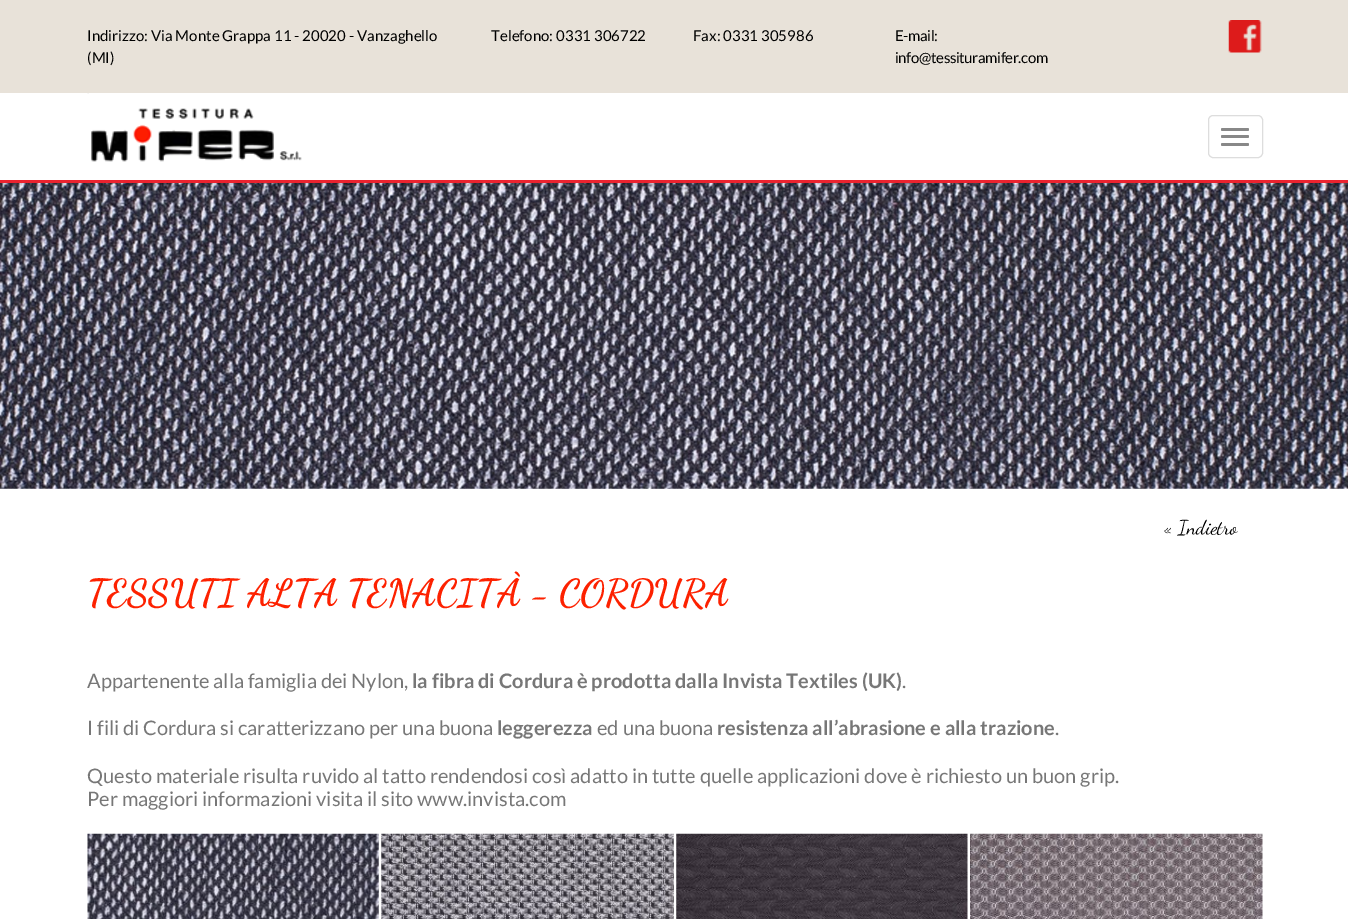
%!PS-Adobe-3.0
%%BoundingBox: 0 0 1348 919
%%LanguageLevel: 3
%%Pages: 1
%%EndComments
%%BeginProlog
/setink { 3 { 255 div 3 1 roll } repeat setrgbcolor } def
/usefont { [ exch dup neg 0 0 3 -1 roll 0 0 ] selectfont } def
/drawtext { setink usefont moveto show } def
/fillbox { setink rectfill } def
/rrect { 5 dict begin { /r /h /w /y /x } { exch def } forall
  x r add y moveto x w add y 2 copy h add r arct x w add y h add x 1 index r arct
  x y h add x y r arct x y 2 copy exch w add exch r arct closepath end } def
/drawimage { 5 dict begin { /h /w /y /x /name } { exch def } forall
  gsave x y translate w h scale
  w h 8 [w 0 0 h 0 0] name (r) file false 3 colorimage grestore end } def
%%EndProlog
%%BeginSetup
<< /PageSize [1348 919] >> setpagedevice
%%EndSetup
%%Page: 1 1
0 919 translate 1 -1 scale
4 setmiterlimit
0 0 1348 919 255 255 255 fillbox
0 180 1348 3 235 35 47 fillbox
0 0 1348 93 232 226 217 fillbox
(Indirizzo: Via Monte Grappa 11 - 20020 - Vanzaghello) 87 41 /Lato-Regular 15 0 0 0 drawtext
(\(MI\)) 87 63 /Lato-Regular 15 0 0 0 drawtext
(Telefono: 0331 306722) 491 41 /Lato-Regular 15 0 0 0 drawtext
(Fax: 0331 305986) 693 41 /Lato-Regular 15 0 0 0 drawtext
895 41 moveto -0.4 0 (E-mail:) ashow
895 63 moveto -0.4 0 (info@tessituramifer.com) ashow
(assets/img1.rgb) 1228 20 34 33 drawimage
(assets/img2.rgb) 87 93 215 69 drawimage
221 221 221 setink
1208.5 115.5 54 42 4.5 rrect stroke
136 136 136 setink
1221 128 28 3 1.5 rrect fill
1221 135 28 3 1.5 rrect fill
1221 143 28 3 1.5 rrect fill
(assets/img3.rgb) 0 183 1348 306 drawimage
(« Indietro) 1164 534 /DancingScript-Regular 20 0 0 0 drawtext
(TESSUTI ALTA TENACITÀ - CORDURA) 87 605 /DancingScript-Bold 37.5 253 33 0 drawtext
(Appartenente alla famiglia dei Nylon,) 87 688 /Lato-Regular 20 119 119 119 drawtext
(la fibra di Cordura è prodotta dalla Invista Textiles \(UK\)) 412 688 /Lato-Bold 20 119 119 119 drawtext
(.) 902 688 /Lato-Regular 20 119 119 119 drawtext
(I fili di Cordura si caratterizzano per una buona) 87 735 /Lato-Regular 20 119 119 119 drawtext
(leggerezza) 497 735 /Lato-Bold 20 119 119 119 drawtext
(ed una buona) 597 735 /Lato-Regular 20 119 119 119 drawtext
(resistenza all’abrasione e alla trazione) 717 735 /Lato-Bold 20 119 119 119 drawtext
(.) 1055 735 /Lato-Regular 20 119 119 119 drawtext
(Questo materiale risulta ruvido al tatto rendendosi così adatto in tutte quelle applicazioni dove è richiesto un buon grip.) 87 783 /Lato-Regular 20 119 119 119 drawtext
(Per maggiori informazioni visita il sito www.invista.com) 87 806 /Lato-Regular 20 119 119 119 drawtext
(assets/img4.rgb) 87 833 292 86 drawimage
(assets/img5.rgb) 381 833 293 86 drawimage
(assets/img6.rgb) 676 833 292 86 drawimage
(assets/img7.rgb) 970 833 293 86 drawimage
showpage
%%EOF
